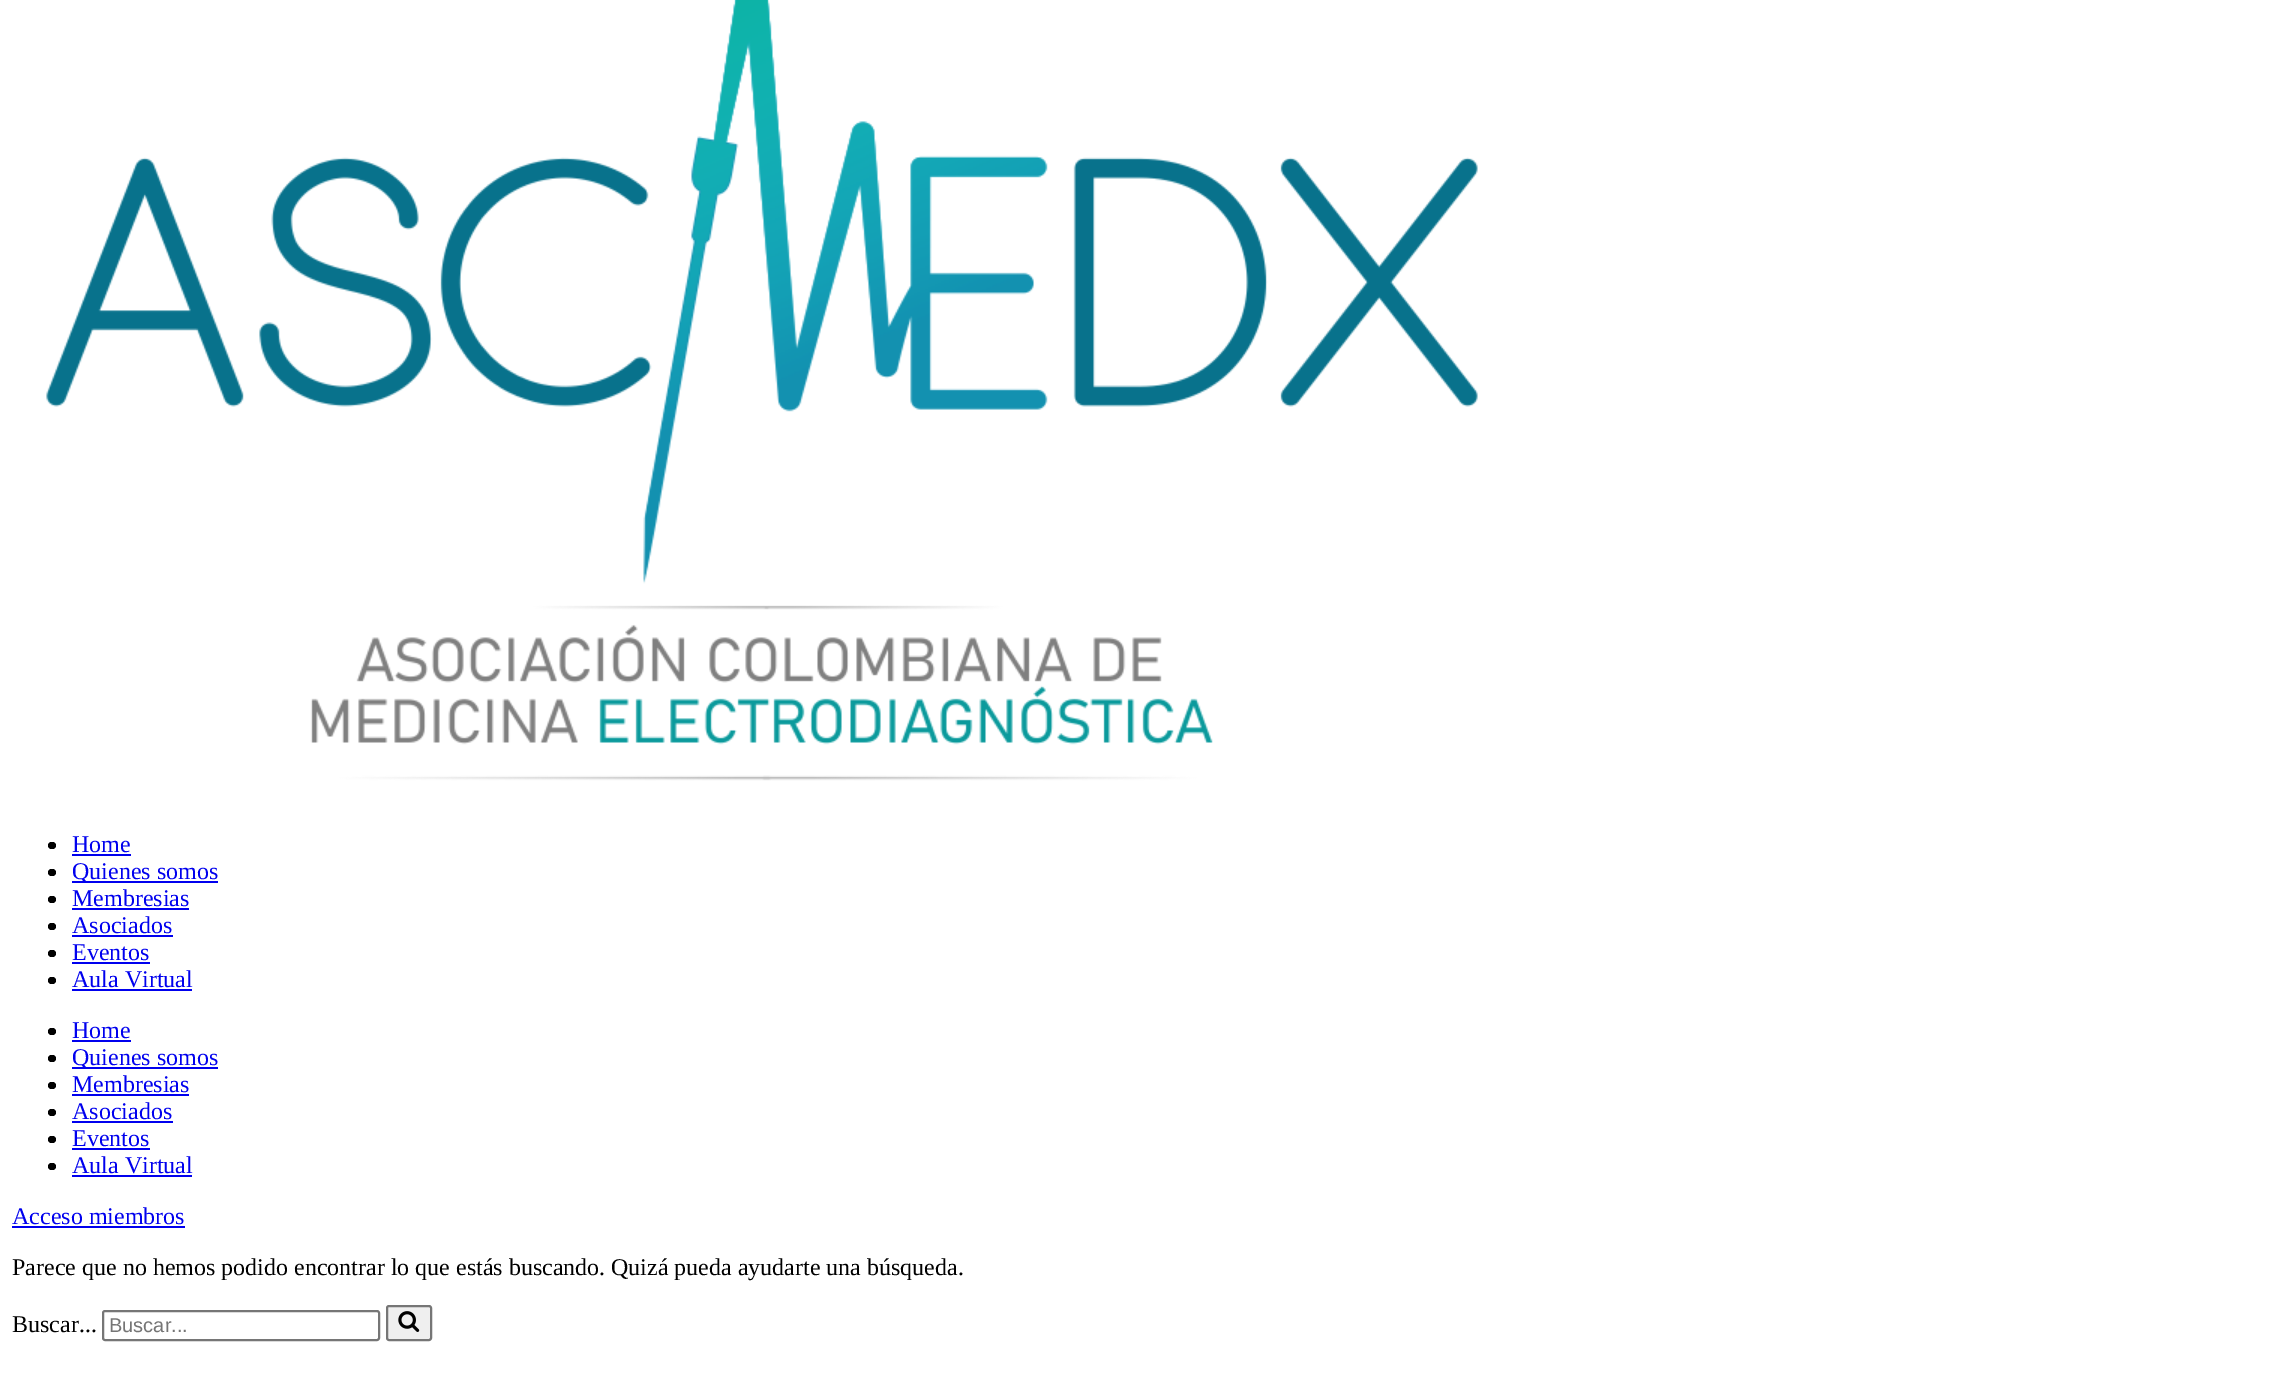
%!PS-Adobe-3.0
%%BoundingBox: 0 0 2278 1385
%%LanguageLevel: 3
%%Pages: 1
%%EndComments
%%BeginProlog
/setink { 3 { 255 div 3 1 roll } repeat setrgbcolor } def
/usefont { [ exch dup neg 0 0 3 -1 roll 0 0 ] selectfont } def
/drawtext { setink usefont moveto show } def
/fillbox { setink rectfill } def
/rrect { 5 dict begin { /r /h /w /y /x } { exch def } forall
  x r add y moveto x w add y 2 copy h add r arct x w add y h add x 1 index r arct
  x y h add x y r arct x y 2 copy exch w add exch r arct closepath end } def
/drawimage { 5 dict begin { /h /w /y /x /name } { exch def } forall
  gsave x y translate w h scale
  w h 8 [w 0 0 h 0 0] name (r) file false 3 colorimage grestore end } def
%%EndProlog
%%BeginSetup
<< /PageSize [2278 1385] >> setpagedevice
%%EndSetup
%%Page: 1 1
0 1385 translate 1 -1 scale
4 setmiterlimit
0 0 2278 1385 255 255 255 fillbox
(assets/img1.rgb) 46 0 1432 781 drawimage
0 0 0 setink
48 842 8 7 3.5 rrect fill
(Home) 72 852 /LiberationSerif-Regular 24 0 0 238 drawtext
72 854 59 2 0 0 238 fillbox
0 0 0 setink
48 869 8 7 3.5 rrect fill
72 881 146 2 0 0 238 fillbox
(Quienes somos) 72 879 /LiberationSerif-Regular 24 0 0 238 drawtext
0 0 0 setink
48 896 8 7 3.5 rrect fill
(Membresias) 72 906 /LiberationSerif-Regular 24 0 0 238 drawtext
72 908 117 2 0 0 238 fillbox
0 0 0 setink
48 923 8 7 3.5 rrect fill
(Asociados) 72 933 /LiberationSerif-Regular 24 0 0 238 drawtext
72 935 101 2 0 0 238 fillbox
0 0 0 setink
48 950 8 7 3.5 rrect fill
(Eventos) 72 960 /LiberationSerif-Regular 24 0 0 238 drawtext
72 962 78 2 0 0 238 fillbox
0 0 0 setink
48 977 8 7 3.5 rrect fill
(Aula Virtual) 72 987 /LiberationSerif-Regular 24 0 0 238 drawtext
72 989 120 2 0 0 238 fillbox
0 0 0 setink
48 1028 8 7 3.5 rrect fill
(Home) 72 1038 /LiberationSerif-Regular 24 0 0 238 drawtext
72 1040 59 2 0 0 238 fillbox
0 0 0 setink
48 1055 8 7 3.5 rrect fill
72 1067 146 2 0 0 238 fillbox
(Quienes somos) 72 1065 /LiberationSerif-Regular 24 0 0 238 drawtext
0 0 0 setink
48 1082 8 7 3.5 rrect fill
(Membresias) 72 1092 /LiberationSerif-Regular 24 0 0 238 drawtext
72 1094 117 2 0 0 238 fillbox
0 0 0 setink
48 1109 8 7 3.5 rrect fill
(Asociados) 72 1119 /LiberationSerif-Regular 24 0 0 238 drawtext
72 1121 101 2 0 0 238 fillbox
0 0 0 setink
48 1136 8 7 3.5 rrect fill
(Eventos) 72 1146 /LiberationSerif-Regular 24 0 0 238 drawtext
72 1148 78 2 0 0 238 fillbox
0 0 0 setink
48 1163 8 7 3.5 rrect fill
(Aula Virtual) 72 1173 /LiberationSerif-Regular 24 0 0 238 drawtext
72 1175 120 2 0 0 238 fillbox
(Acceso miembros) 12 1224 /LiberationSerif-Regular 24 0 0 238 drawtext
12 1226 173 2 0 0 238 fillbox
(Parece que no hemos podido encontrar lo que estás buscando. Quizá pueda ayudarte una búsqueda.) 12 1275 /LiberationSerif-Regular 24 0 0 0 drawtext
(Buscar...) 12 1332 /LiberationSerif-Regular 24 0 0 0 drawtext
118 118 118 setink
2 setlinewidth
103 1311 276 29 2 rrect stroke
(Buscar...) 109 1332 /LiberationSans-Regular 20 117 117 117 drawtext
239 239 239 setink
387 1306 44 34 2 rrect gsave fill grestore
118 118 118 setink
stroke
(assets/img2.rgb) 398 1311 22 21 drawimage
showpage
%%EOF
